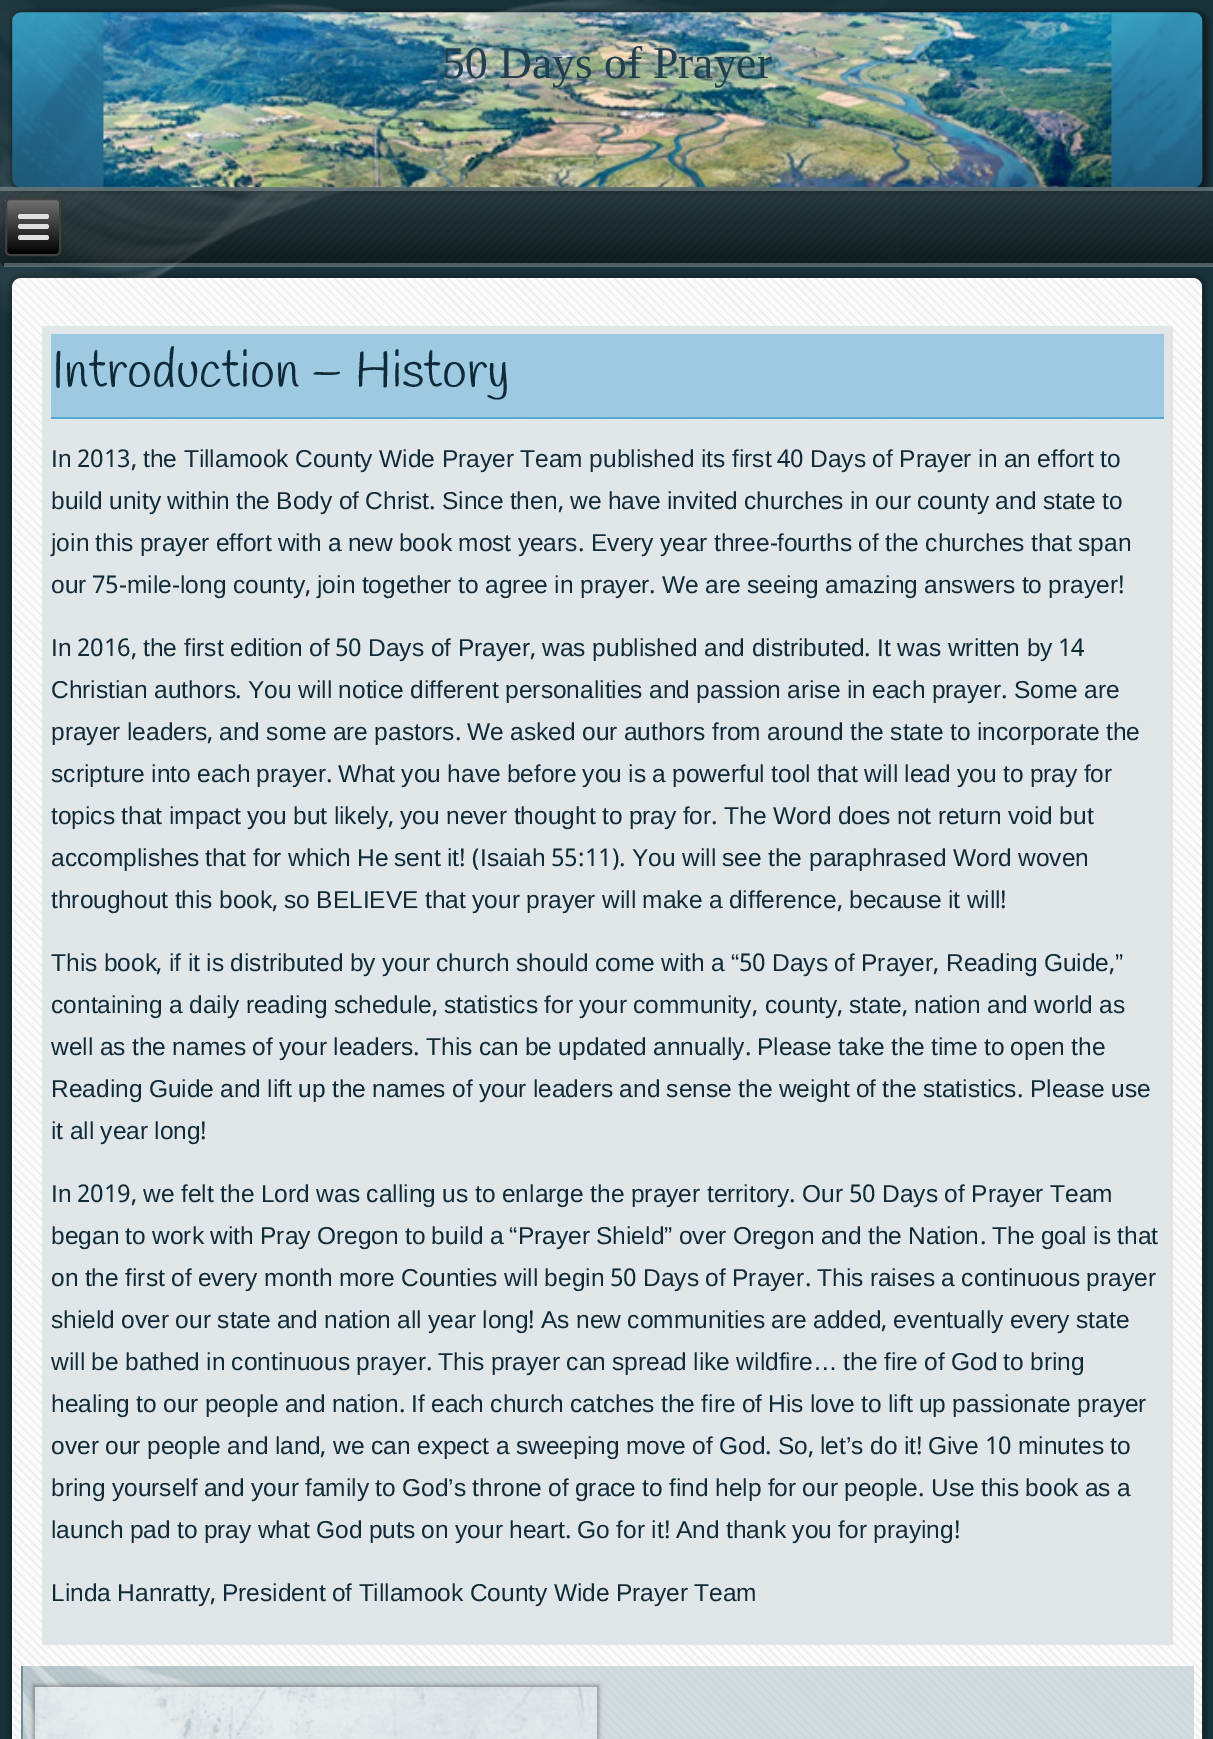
%!PS-Adobe-3.0
%%BoundingBox: 0 0 1213 1739
%%LanguageLevel: 3
%%Pages: 1
%%EndComments
%%BeginProlog
/setink { 3 { 255 div 3 1 roll } repeat setrgbcolor } def
/usefont { [ exch dup neg 0 0 3 -1 roll 0 0 ] selectfont } def
/drawtext { setink usefont moveto show } def
/fillbox { setink rectfill } def
/setalpha { dup .setfillconstantalpha .setstrokeconstantalpha } def
/rrect { 5 dict begin { /r /h /w /y /x } { exch def } forall
  x r add y moveto x w add y 2 copy h add r arct x w add y h add x 1 index r arct
  x y h add x y r arct x y 2 copy exch w add exch r arct closepath end } def
/softshadow { 12 dict begin { /a /b /q /h /w /y /x } { exch def } forall gsave /was 0 def
  9 -2 -9 { dup b mul 4 div /e exch def 1 sub .425 mul 2.718 exch exp 1 add a .99 .min exch div /now exch def
    1 1 now sub 1 was sub div sub setalpha /was now def
    w h .min e 2 mul add 0 gt { x e sub y e sub w e 2 mul add h e 2 mul add
      q e add b .6 mul add w h .min 2 div e add .min 0 .max rrect fill } if } for grestore end } def
/drawimage { 5 dict begin { /h /w /y /x /name } { exch def } forall
  gsave x y translate w h scale
  w h 8 [w 0 0 h 0 0] name (r) file false 3 colorimage grestore end } def
%%EndProlog
%%BeginSetup
<< /PageSize [1213 1739] /PageUsesTransparency true >> setpagedevice
%%EndSetup
%%Page: 1 1
0 .pushpdf14devicefilter
0 1739 translate 1 -1 scale
4 setmiterlimit
0 0 1213 1739 24 50 58 fillbox
(assets/img1.rgb) 0 0 888 313 drawimage
0 0 0 setink
11 11 1197 182 12 2.5 0.4 softshadow
(assets/img2.rgb) 12 12 1191 176 drawimage
(50 Days of Prayer) 442 78 /LiberationSerif-Regular 45.5 33 63 79 drawtext
(assets/img3.rgb) 0 187 1213 79 drawimage
0.4 setalpha
0 187 1213 4 169 188 193 fillbox
1 setalpha
0 0 0 setink
9 275 1197 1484 12 2.5 0.25 softshadow
0.4 setalpha
4 263 1209 4 169 188 193 fillbox
1 setalpha
0 0 0 setink
5 198 56 58 5 2.5 0.2 softshadow
gsave
5 198 56 58 5 rrect clip newpath
gsave 5 200 moveto 61 200 lineto 61 254 lineto 5 254 lineto closepath clip newpath
<< /ShadingType 2 /ColorSpace /DeviceRGB /Coords [33 200 33 254] /Extend [true true] /Function << /FunctionType 2 /Domain [0 1] /C0 [0.439 0.439 0.439] /C1 [0 0 0] /N 1 >> >> shfill grestore
grestore
64 64 64 setink
2 setlinewidth
6 199 54 56 4 rrect stroke
224 224 224 setink
18 214 31 5 2.5 rrect fill
18 224 31 5 2.5 rrect fill
18 235 31 5 2.5 rrect fill
255 255 255 setink
12 278 1190 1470 9 rrect fill
(assets/img4.rgb) 12 278 1191 1461 drawimage
0.9 setalpha
42 326 1131 1319 222 229 231 fillbox
1 setalpha
51 334 1113 83 158 202 225 fillbox
51 417 1113 2 86 167 210 fillbox
(Introduction – History) 52 387 /Handlee-Regular 50.75 15 42 56 drawtext
(In) 51 467 /LiberationSans-Regular 24.5 15 42 56 drawtext
(2013,) 77 467 /Khmer-Regular 24.5 15 42 56 drawtext
/LiberationSans-Regular 24.5 usefont
143 467 moveto -0.25 0 32 (the Tillamook County Wide Prayer Team published its first) widthshow
(40) 777 467 /Khmer-Regular 24.5 15 42 56 drawtext
/LiberationSans-Regular 24.5 usefont
810 467 moveto -0.25 0 32 (Days of Prayer in an effort to) widthshow
51 509 moveto -0.5 0 32 (build unity within the Body of Christ) widthshow
(.) 429 509 /Khmer-Regular 24.5 15 42 56 drawtext
/LiberationSans-Regular 24.5 usefont
442 509 moveto -0.5 0 32 (Since then) widthshow
(,) 558 509 /Khmer-Regular 24.5 15 42 56 drawtext
/LiberationSans-Regular 24.5 usefont
570 509 moveto -0.5 0 32 (we have invited churches in our county and state to) widthshow
51 551 moveto -0.5 0 32 (join this prayer effort with a new book most years) widthshow
591 551 moveto -0.5 0 32 (Every year three) widthshow
(-) 770 551 /Khmer-Regular 24.5 15 42 56 drawtext
/LiberationSans-Regular 24.5 usefont
777 551 moveto -0.5 0 32 (fourths of the churches that span) widthshow
(.) 578 551 /Khmer-Regular 24.5 15 42 56 drawtext
(our) 51 593 /LiberationSans-Regular 24.5 15 42 56 drawtext
(75-) 92 593 /Khmer-Regular 24.5 15 42 56 drawtext
(mile) 127 593 /LiberationSans-Regular 24.5 15 42 56 drawtext
(-) 172 593 /Khmer-Regular 24.5 15 42 56 drawtext
/LiberationSans-Regular 24.5 usefont
180 593 moveto -0.25 0 32 (long county) widthshow
317 593 moveto -0.25 0 32 (join together to agree in prayer) widthshow
662 593 moveto -0.5 0 32 (We are seeing amazing answers to prayer) widthshow
(!) 1118 593 /Khmer-Regular 24.5 15 42 56 drawtext
(,) 305 593 /Khmer-Regular 24.5 15 42 56 drawtext
(.) 649 593 /Khmer-Regular 24.5 15 42 56 drawtext
(In) 51 656 /LiberationSans-Regular 24.5 15 42 56 drawtext
(2016,) 77 656 /Khmer-Regular 24.5 15 42 56 drawtext
(the first edition of) 143 656 /LiberationSans-Regular 24.5 15 42 56 drawtext
(50) 335 656 /Khmer-Regular 24.5 15 42 56 drawtext
(Days of Prayer) 368 656 /LiberationSans-Regular 24.5 15 42 56 drawtext
(,) 530 656 /Khmer-Regular 24.5 15 42 56 drawtext
(was published and distributed) 542 656 /LiberationSans-Regular 24.5 15 42 56 drawtext
(.) 864 656 /Khmer-Regular 24.5 15 42 56 drawtext
(It was written by) 877 656 /LiberationSans-Regular 24.5 15 42 56 drawtext
(14) 1058 656 /Khmer-Regular 24.5 15 42 56 drawtext
/LiberationSans-Regular 24.5 usefont
51 698 moveto -0.4 0 32 (Christian authors) widthshow
(.) 235 698 /Khmer-Regular 24.5 15 42 56 drawtext
/LiberationSans-Regular 24.5 usefont
248 698 moveto -0.4 0 32 (You will notice different personalities and passion arise in each prayer) widthshow
(.) 1001 698 /Khmer-Regular 24.5 15 42 56 drawtext
/LiberationSans-Regular 24.5 usefont
1014 698 moveto -0.4 0 32 (Some are) widthshow
51 740 moveto -0.4 0 32 (prayer leaders) widthshow
(,) 207 740 /Khmer-Regular 24.5 15 42 56 drawtext
/LiberationSans-Regular 24.5 usefont
219 740 moveto -0.4 0 32 (and some are pastors) widthshow
(.) 455 740 /Khmer-Regular 24.5 15 42 56 drawtext
/LiberationSans-Regular 24.5 usefont
467 740 moveto -0.4 0 32 (We asked our authors from around the state to incorporate the) widthshow
51 782 moveto -0.5 0 32 (scripture into each prayer) widthshow
(.) 326 782 /Khmer-Regular 24.5 15 42 56 drawtext
/LiberationSans-Regular 24.5 usefont
338 782 moveto -0.5 0 32 (What you have before you is a powerful tool that will lead you to pray for) widthshow
51 824 moveto -0.4 0 32 (topics that impact you but likely) widthshow
(,) 388 824 /Khmer-Regular 24.5 15 42 56 drawtext
/LiberationSans-Regular 24.5 usefont
400 824 moveto -0.4 0 32 (you never thought to pray for) widthshow
(.) 711 824 /Khmer-Regular 24.5 15 42 56 drawtext
/LiberationSans-Regular 24.5 usefont
724 824 moveto -0.4 0 32 (The Word does not return void but) widthshow
(accomplishes) 51 866 /LiberationSans-Regular 24.5 15 42 56 drawtext
(that) 205 866 /LiberationSans-Regular 24.5 15 42 56 drawtext
(for) 253 866 /LiberationSans-Regular 24.5 15 42 56 drawtext
(which) 288 866 /LiberationSans-Regular 24.5 15 42 56 drawtext
(He) 357 866 /LiberationSans-Regular 24.5 15 42 56 drawtext
(sent) 394 866 /LiberationSans-Regular 24.5 15 42 56 drawtext
(it) 447 866 /LiberationSans-Regular 24.5 15 42 56 drawtext
(! \() 459 866 /Khmer-Regular 24.5 15 42 56 drawtext
(Isaiah) 480 866 /LiberationSans-Regular 24.5 15 42 56 drawtext
(55:11\).) 551 866 /Khmer-Regular 24.5 15 42 56 drawtext
(You) 632 866 /LiberationSans-Regular 24.5 15 42 56 drawtext
(will) 682 866 /LiberationSans-Regular 24.5 15 42 56 drawtext
(see) 722 866 /LiberationSans-Regular 24.5 15 42 56 drawtext
(the) 768 866 /LiberationSans-Regular 24.5 15 42 56 drawtext
(paraphrased) 809 866 /LiberationSans-Regular 24.5 15 42 56 drawtext
(Word) 953 866 /LiberationSans-Regular 24.5 15 42 56 drawtext
(woven) 1018 866 /LiberationSans-Regular 24.5 15 42 56 drawtext
51 908 moveto -0.4 0 32 (throughout this book) widthshow
(,) 272 908 /Khmer-Regular 24.5 15 42 56 drawtext
/LiberationSans-Regular 24.5 usefont
284 908 moveto -0.4 0 32 (so BELIEVE that your prayer will make a difference) widthshow
(,) 837 908 /Khmer-Regular 24.5 15 42 56 drawtext
/LiberationSans-Regular 24.5 usefont
849 908 moveto -0.4 0 32 (because it will) widthshow
(!) 1000 908 /Khmer-Regular 24.5 15 42 56 drawtext
/LiberationSans-Regular 24.5 usefont
51 971 moveto -0.4 0 32 (This book) widthshow
169 971 moveto -0.4 0 32 (if it is distributed by your church should come with a “) widthshow
(50) 739 971 /Khmer-Regular 24.5 15 42 56 drawtext
/LiberationSans-Regular 24.5 usefont
772 971 moveto -0.4 0 32 (Days of Prayer) widthshow
946 971 moveto -0.4 0 32 (Reading Guide) widthshow
(”) 1115 971 /LiberationSans-Regular 24.5 15 42 56 drawtext
(,) 156 971 /Khmer-Regular 24.5 15 42 56 drawtext
(,) 933 971 /Khmer-Regular 24.5 15 42 56 drawtext
(,) 1109 971 /Khmer-Regular 24.5 15 42 56 drawtext
/LiberationSans-Regular 24.5 usefont
51 1013 moveto -0.5 0 32 (containing a daily reading schedule) widthshow
(,) 432 1013 /Khmer-Regular 24.5 15 42 56 drawtext
/LiberationSans-Regular 24.5 usefont
444 1013 moveto -0.5 0 32 (statistics for your community) widthshow
(,) 752 1013 /Khmer-Regular 24.5 15 42 56 drawtext
(county) 765 1013 /LiberationSans-Regular 24.5 15 42 56 drawtext
(,) 837 1013 /Khmer-Regular 24.5 15 42 56 drawtext
(state) 849 1013 /LiberationSans-Regular 24.5 15 42 56 drawtext
(,) 902 1013 /Khmer-Regular 24.5 15 42 56 drawtext
/LiberationSans-Regular 24.5 usefont
914 1013 moveto -0.5 0 32 (nation and world as) widthshow
51 1055 moveto -0.4 0 32 (well as the names of your leaders) widthshow
(.) 413 1055 /Khmer-Regular 24.5 15 42 56 drawtext
/LiberationSans-Regular 24.5 usefont
426 1055 moveto -0.4 0 32 (This can be updated annually) widthshow
(.) 745 1055 /Khmer-Regular 24.5 15 42 56 drawtext
/LiberationSans-Regular 24.5 usefont
757 1055 moveto -0.5 0 32 (Please take the time to open the) widthshow
51 1097 moveto -0.5 0 32 (Reading Guide and lift up the names of your leaders and sense the weight of the statistics) widthshow
(.) 1017 1097 /Khmer-Regular 24.5 15 42 56 drawtext
/LiberationSans-Regular 24.5 usefont
1030 1097 moveto -0.5 0 32 (Please use) widthshow
51 1139 moveto -0.5 0 32 (it all year long) widthshow
(!) 200 1139 /Khmer-Regular 24.5 15 42 56 drawtext
(In) 51 1202 /LiberationSans-Regular 24.5 15 42 56 drawtext
(2019,) 77 1202 /Khmer-Regular 24.5 15 42 56 drawtext
/LiberationSans-Regular 24.5 usefont
143 1202 moveto -0.25 0 32 (we felt the Lord was calling us to enlarge the prayer territory) widthshow
(.) 789 1202 /Khmer-Regular 24.5 15 42 56 drawtext
(Our) 802 1202 /LiberationSans-Regular 24.5 15 42 56 drawtext
(50) 849 1202 /Khmer-Regular 24.5 15 42 56 drawtext
/LiberationSans-Regular 24.5 usefont
882 1202 moveto -0.25 0 32 (Days of Prayer Team) widthshow
51 1244 moveto -0.5 0 32 (began to work with Pray Oregon to build a “Prayer Shield” over Oregon and the Nation) widthshow
(.) 980 1244 /Khmer-Regular 24.5 15 42 56 drawtext
/LiberationSans-Regular 24.5 usefont
992 1244 moveto -0.5 0 32 (The goal is that) widthshow
51 1286 moveto -0.4 0 32 (on the first of every month more Counties will begin) widthshow
(50) 610 1286 /Khmer-Regular 24.5 15 42 56 drawtext
/LiberationSans-Regular 24.5 usefont
643 1286 moveto -0.4 0 32 (Days of Prayer) widthshow
(.) 805 1286 /Khmer-Regular 24.5 15 42 56 drawtext
/LiberationSans-Regular 24.5 usefont
817 1286 moveto -0.4 0 32 (This raises a continuous prayer) widthshow
51 1328 moveto -0.4 0 32 (shield over our state and nation all year long) widthshow
(!) 528 1328 /Khmer-Regular 24.5 15 42 56 drawtext
/LiberationSans-Regular 24.5 usefont
541 1328 moveto -0.4 0 32 (As new communities are added) widthshow
(,) 881 1328 /Khmer-Regular 24.5 15 42 56 drawtext
/LiberationSans-Regular 24.5 usefont
893 1328 moveto -0.4 0 32 (eventually every state) widthshow
51 1370 moveto -0.5 0 32 (will be bathed in continuous prayer) widthshow
(.) 426 1370 /Khmer-Regular 24.5 15 42 56 drawtext
/LiberationSans-Regular 24.5 usefont
438 1370 moveto -0.5 0 32 (This prayer can spread like wildfire… the fire of God to bring) widthshow
51 1412 moveto -0.5 0 32 (healing to our people and nation) widthshow
(.) 399 1412 /Khmer-Regular 24.5 15 42 56 drawtext
/LiberationSans-Regular 24.5 usefont
411 1412 moveto -0.5 0 32 (If each church catches the fire of His love to lift up passionate prayer) widthshow
51 1454 moveto -0.25 0 32 (over our people and land) widthshow
(,) 320 1454 /Khmer-Regular 24.5 15 42 56 drawtext
/LiberationSans-Regular 24.5 usefont
333 1454 moveto -0.25 0 32 (we can expect a sweeping move of God) widthshow
(.) 765 1454 /Khmer-Regular 24.5 15 42 56 drawtext
(So) 778 1454 /LiberationSans-Regular 24.5 15 42 56 drawtext
(,) 808 1454 /Khmer-Regular 24.5 15 42 56 drawtext
/LiberationSans-Regular 24.5 usefont
820 1454 moveto -0.25 0 32 (let’s do it) widthshow
(!) 916 1454 /Khmer-Regular 24.5 15 42 56 drawtext
(Give) 928 1454 /LiberationSans-Regular 24.5 15 42 56 drawtext
(10) 985 1454 /Khmer-Regular 24.5 15 42 56 drawtext
/LiberationSans-Regular 24.5 usefont
1018 1454 moveto -0.25 0 32 (minutes to) widthshow
51 1496 moveto -0.5 0 32 (bring yourself and your family to God’s throne of grace to find help for our people) widthshow
(.) 918 1496 /Khmer-Regular 24.5 15 42 56 drawtext
/LiberationSans-Regular 24.5 usefont
931 1496 moveto -0.5 0 32 (Use this book as a) widthshow
51 1538 moveto -0.4 0 32 (launch pad to pray what God puts on your heart) widthshow
(.) 565 1538 /Khmer-Regular 24.5 15 42 56 drawtext
/LiberationSans-Regular 24.5 usefont
577 1538 moveto -0.4 0 32 (Go for it) widthshow
(!) 664 1538 /Khmer-Regular 24.5 15 42 56 drawtext
/LiberationSans-Regular 24.5 usefont
676 1538 moveto -0.4 0 32 (And thank you for praying) widthshow
(!) 954 1538 /Khmer-Regular 24.5 15 42 56 drawtext
/LiberationSans-Regular 24.5 usefont
51 1601 moveto -0.5 0 32 (Linda Hanratty) widthshow
(,) 210 1601 /Khmer-Regular 24.5 15 42 56 drawtext
/LiberationSans-Regular 24.5 usefont
222 1601 moveto -0.5 0 32 (President of Tillamook County Wide Prayer Team) widthshow
0.5 setalpha
23 1666 1171 73 169 188 193 fillbox
1 setalpha
(assets/img5.rgb) 23 1666 513 73 drawimage
21 1666 2 73 110 141 150 fillbox
0 0 0 setink
33 1685 566 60 0 2 0.3 softshadow
35 1687 562 52 222 229 231 fillbox
(assets/img6.rgb) 35 1687 561 52 drawimage
.poppdf14devicefilter showpage
%%EOF
